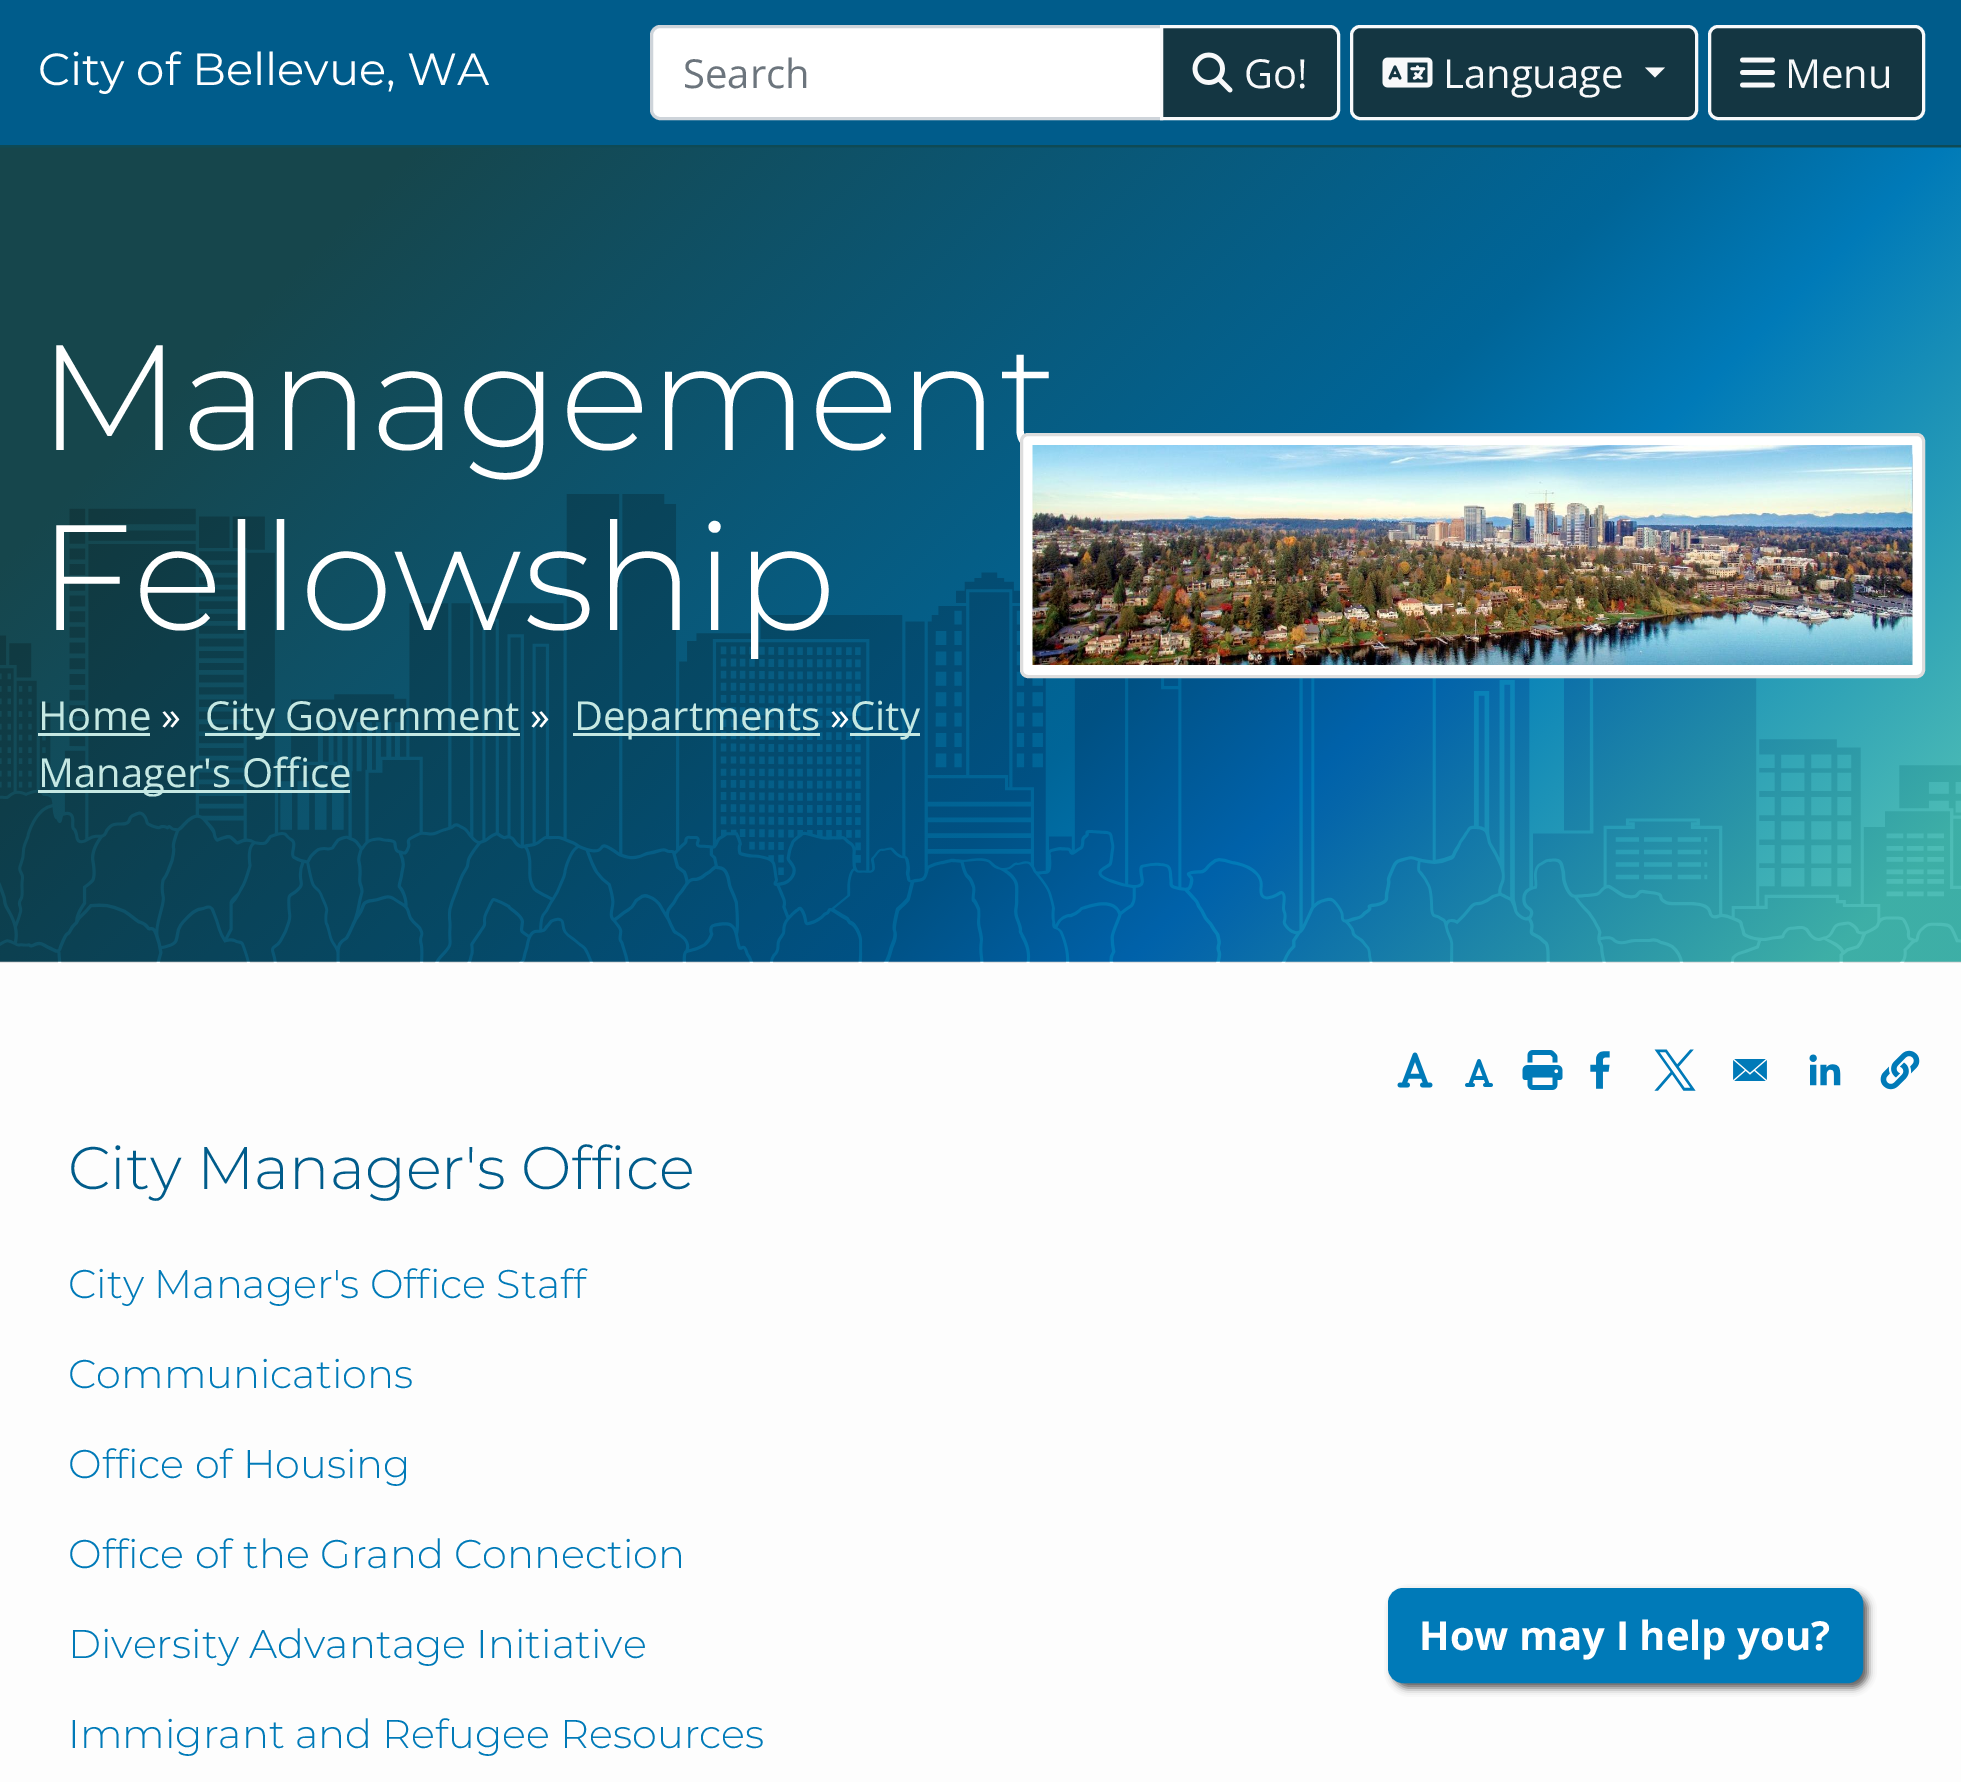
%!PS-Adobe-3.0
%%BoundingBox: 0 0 1961 1782
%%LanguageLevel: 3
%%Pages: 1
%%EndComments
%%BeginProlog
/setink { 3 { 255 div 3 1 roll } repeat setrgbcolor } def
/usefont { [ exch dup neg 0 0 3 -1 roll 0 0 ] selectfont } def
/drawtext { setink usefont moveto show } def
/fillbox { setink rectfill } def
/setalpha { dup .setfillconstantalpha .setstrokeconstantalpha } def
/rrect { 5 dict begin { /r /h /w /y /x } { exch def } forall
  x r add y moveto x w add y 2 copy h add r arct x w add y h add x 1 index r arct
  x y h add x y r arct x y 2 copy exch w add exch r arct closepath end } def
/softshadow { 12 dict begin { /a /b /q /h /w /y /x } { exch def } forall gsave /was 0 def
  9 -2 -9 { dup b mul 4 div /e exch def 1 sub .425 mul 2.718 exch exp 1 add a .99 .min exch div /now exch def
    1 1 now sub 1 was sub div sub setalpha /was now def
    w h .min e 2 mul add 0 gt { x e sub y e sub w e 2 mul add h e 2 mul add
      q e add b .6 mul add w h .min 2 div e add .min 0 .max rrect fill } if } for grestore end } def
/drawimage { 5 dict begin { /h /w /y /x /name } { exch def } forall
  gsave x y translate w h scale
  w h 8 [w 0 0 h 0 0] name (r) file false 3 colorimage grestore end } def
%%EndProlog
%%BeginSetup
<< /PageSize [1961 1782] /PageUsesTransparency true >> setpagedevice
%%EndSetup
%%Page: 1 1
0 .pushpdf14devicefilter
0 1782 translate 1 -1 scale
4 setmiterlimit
0 0 1961 1782 253 253 253 fillbox
0 0 1961 145 0 92 139 fillbox
0 145 1961 3 14 74 85 fillbox
(City of Bellevue, WA) 38 85 /Montserrat-Regular 45 255 255 255 drawtext
660 26.5 moveto 1161.5 26.5 lineto 1161.5 118.5 lineto 660 118.5 lineto 655.5 118.5 651.5 114.5 651.5 110 curveto 651.5 35 lineto 651.5 30.5 655.5 26.5 660 26.5 curveto closepath gsave fill grestore
206 212 218 setink
3 setlinewidth
stroke
(Search) 683 88 /OpenSans-Regular 40 108 117 125 drawtext
20 54 66 setink
1161.5 26.5 moveto 1330 26.5 lineto 1334.5 26.5 1338.5 30.5 1338.5 35 curveto 1338.5 110 lineto 1338.5 114.5 1334.5 118.5 1330 118.5 curveto 1161.5 118.5 lineto closepath gsave fill grestore
248 249 250 setink
stroke
(assets/img1.rgb) 1192 52 41 41 drawimage
(Go!) 1244 88 /OpenSans-Regular 40 248 249 250 drawtext
20 54 66 setink
1351.5 26.5 345 92 8.5 rrect gsave fill grestore
248 249 250 setink
stroke
(assets/img2.rgb) 1382 57 51 31 drawimage
(Language) 1443 88 /OpenSans-Regular 40 248 249 250 drawtext
1645 67.5 moveto 1665 67.5 lineto 1655 77.5 lineto closepath fill
20 54 66 setink
1709.5 26.5 214 92 8.5 rrect gsave fill grestore
248 249 250 setink
stroke
(assets/img3.rgb) 1740 57 35 31 drawimage
(Menu) 1785 88 /OpenSans-Regular 40 248 249 250 drawtext
(assets/img4.rgb) 0 147 1961 816 drawimage
(Management) 38 450 /Montserrat-Light 150 255 255 255 drawtext
(Fellowship) 38 630 /Montserrat-Light 150 255 255 255 drawtext
(») 830 730 /OpenSans-Regular 40 255 255 255 drawtext
850 733 70 3 197 232 227 fillbox
(City) 850 730 /OpenSans-Regular 40 197 232 227 drawtext
38 790 312 3 197 232 227 fillbox
(Manager's Office) 38 787 /OpenSans-Regular 40 197 232 227 drawtext
(Home) 38 730 /OpenSans-Regular 40 197 232 227 drawtext
38 733 112 3 197 232 227 fillbox
(») 161 730 /OpenSans-Regular 40 255 255 255 drawtext
205 733 315 3 197 232 227 fillbox
(City Government) 205 730 /OpenSans-Regular 40 197 232 227 drawtext
(») 530 730 /OpenSans-Regular 40 255 255 255 drawtext
573 733 247 3 197 232 227 fillbox
(Departments) 574 730 /OpenSans-Regular 40 197 232 227 drawtext
255 255 255 setink
1021.5 434.5 902 242 6.5 rrect gsave fill grestore
221 221 221 setink
stroke
(assets/img5.rgb) 1032 445 881 220 drawimage
94 91 91 setink
1393 1593 475 95 15 4 1 softshadow
0 122 184 setink
1389.5 1589.5 472 92 13.5 rrect gsave fill grestore
stroke
(How may I help you?) 1419 1650 /OpenSans-Bold 40 255 255 255 drawtext
(assets/img6.rgb) 1397 1052 36 36 drawimage
(assets/img7.rgb) 1465 1059 28 28 drawimage
(assets/img8.rgb) 1522 1050 41 40 drawimage
(assets/img9.rgb) 1590 1051 20 38 drawimage
(assets/img10.rgb) 1654 1049 42 42 drawimage
(assets/img11.rgb) 1733 1059 34 22 drawimage
(assets/img12.rgb) 1809 1054 32 32 drawimage
(assets/img13.rgb) 1880 1050 40 40 drawimage
(City Manager's Office) 68 1189 /Montserrat-Light 60 0 92 139 drawtext
(City Manager's Office Staff) 68 1298 /Montserrat-Light 40 0 122 184 drawtext
(Communications) 68 1388 /Montserrat-Light 40 0 122 184 drawtext
(Office of Housing) 68 1478 /Montserrat-Light 40 0 122 184 drawtext
(Office of the Grand Connection) 68 1568 /Montserrat-Light 40 0 122 184 drawtext
(Diversity Advantage Initiative) 68 1658 /Montserrat-Light 40 0 122 184 drawtext
(Immigrant and Refugee Resources) 68 1748 /Montserrat-Light 40 0 122 184 drawtext
.poppdf14devicefilter showpage
%%EOF
